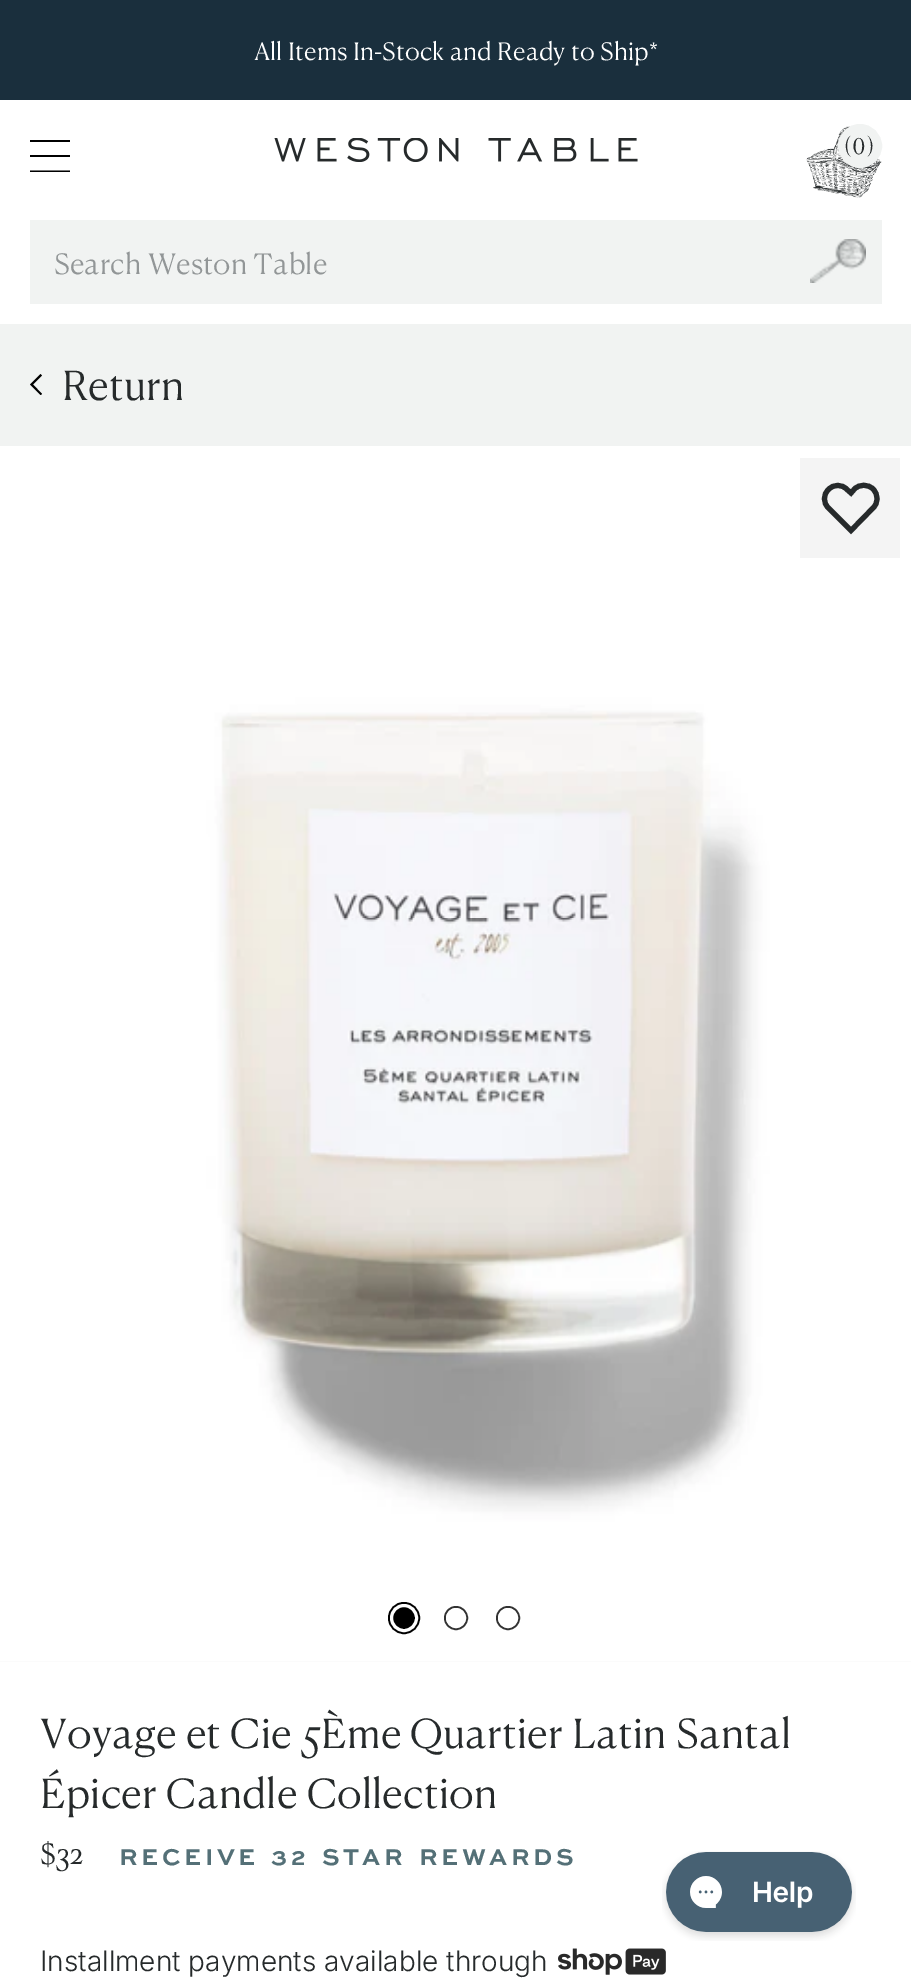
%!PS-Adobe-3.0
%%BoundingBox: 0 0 911 1985
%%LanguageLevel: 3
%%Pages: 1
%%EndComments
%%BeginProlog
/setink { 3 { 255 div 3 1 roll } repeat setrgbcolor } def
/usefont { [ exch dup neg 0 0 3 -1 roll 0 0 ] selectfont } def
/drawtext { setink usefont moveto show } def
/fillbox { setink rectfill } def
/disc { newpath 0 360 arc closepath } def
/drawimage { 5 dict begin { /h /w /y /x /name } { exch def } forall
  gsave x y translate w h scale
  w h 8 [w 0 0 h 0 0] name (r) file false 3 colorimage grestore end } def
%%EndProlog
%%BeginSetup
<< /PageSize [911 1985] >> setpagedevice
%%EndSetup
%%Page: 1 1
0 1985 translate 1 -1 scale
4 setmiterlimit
0 0 911 1985 255 255 255 fillbox
0 0 911 100 26 47 61 fillbox
(All Items In-Stock and Ready to Ship*) 254 60 /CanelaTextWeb-Light 24 255 255 255 drawtext
gsave
30 140 40 32 rectclip
0 0 0 setink
30 157 moveto 70 157 lineto 70 155 lineto 30 155 lineto closepath 30 172.5 moveto 70 172.5 lineto 70 170.5 lineto 30 170.5 lineto closepath 30 140 moveto 30 142 lineto 70 142 lineto 70 140 lineto closepath fill
grestore
(assets/img1.rgb) 274 138 364 24 drawimage
(assets/img2.rgb) 806 126 76 72 drawimage
241 243 242 setink
860 146 21 disc gsave fill grestore
2 setlinewidth
stroke
/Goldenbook-Regular 24 usefont
38 42 43 setink
844 154 moveto 1 0 (\(0\)) ashow
30 220 852 84 241 243 242 fillbox
(Search Weston Table) 54 274 /CanelaTextWeb-Light 28 146 150 151 drawtext
(assets/img3.rgb) 810 239 56 44 drawimage
0 324 911 122 241 243 242 fillbox
0 0 0 setink
42 375.5 moveto 40.5 374 lineto 30 384.5 lineto 40.5 395 lineto 42 394 lineto 33 384.5 lineto closepath fill
(Return) 62 400 /CanelaTextWeb-Light 40 38 42 43 drawtext
0 1661 911 1 244 244 244 fillbox
(assets/img4.rgb) 0 446 911 1216 drawimage
0 0 0 setink
3 setlinewidth
404 1618 14.5 disc stroke
404 1618 12.5 disc gsave fill grestore
255 255 255 setink
stroke
51 51 51 setink
2 setlinewidth
456 1618 11 disc stroke
255 255 255 setink
456 1618 9 disc gsave fill grestore
stroke
51 51 51 setink
508 1618 11 disc stroke
255 255 255 setink
508 1618 9 disc gsave fill grestore
stroke
800 458 100 100 244 244 244 fillbox
38 42 43 setink
5.1 setlinewidth
851 493 moveto 847 489.5 lineto 842 484 833.5 484 828.5 489.5 curveto 823 494.5 823 503 828.5 508 curveto 851 530.5 lineto 873 508 lineto 878.5 503 878.5 494.5 873 489 curveto 868 484 859.5 484 854.5 489 curveto closepath stroke
(Voyage et Cie 5Ème Quartier Latin Santal) 40 1748 /CanelaTextWeb-Light 40 38 42 43 drawtext
(Épicer Candle Collection) 40 1808 /CanelaTextWeb-Light 40 38 42 43 drawtext
($32) 40 1864 /CanelaTextWeb-Light 28 38 42 43 drawtext
/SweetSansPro-Bold 24 usefont
84 112 119 setink
119 1865 moveto 3.5 0 32 3.6 0 (RECEIVE 32 STAR REWARDS) awidthshow
(Installment payments available through) 40 1971 /Inter-Light 28 38 42 43 drawtext
(assets/img5.rgb) 558 1948 108 27 drawimage
(assets/img6.rgb) 662 1851 194 90 drawimage
showpage
%%EOF
